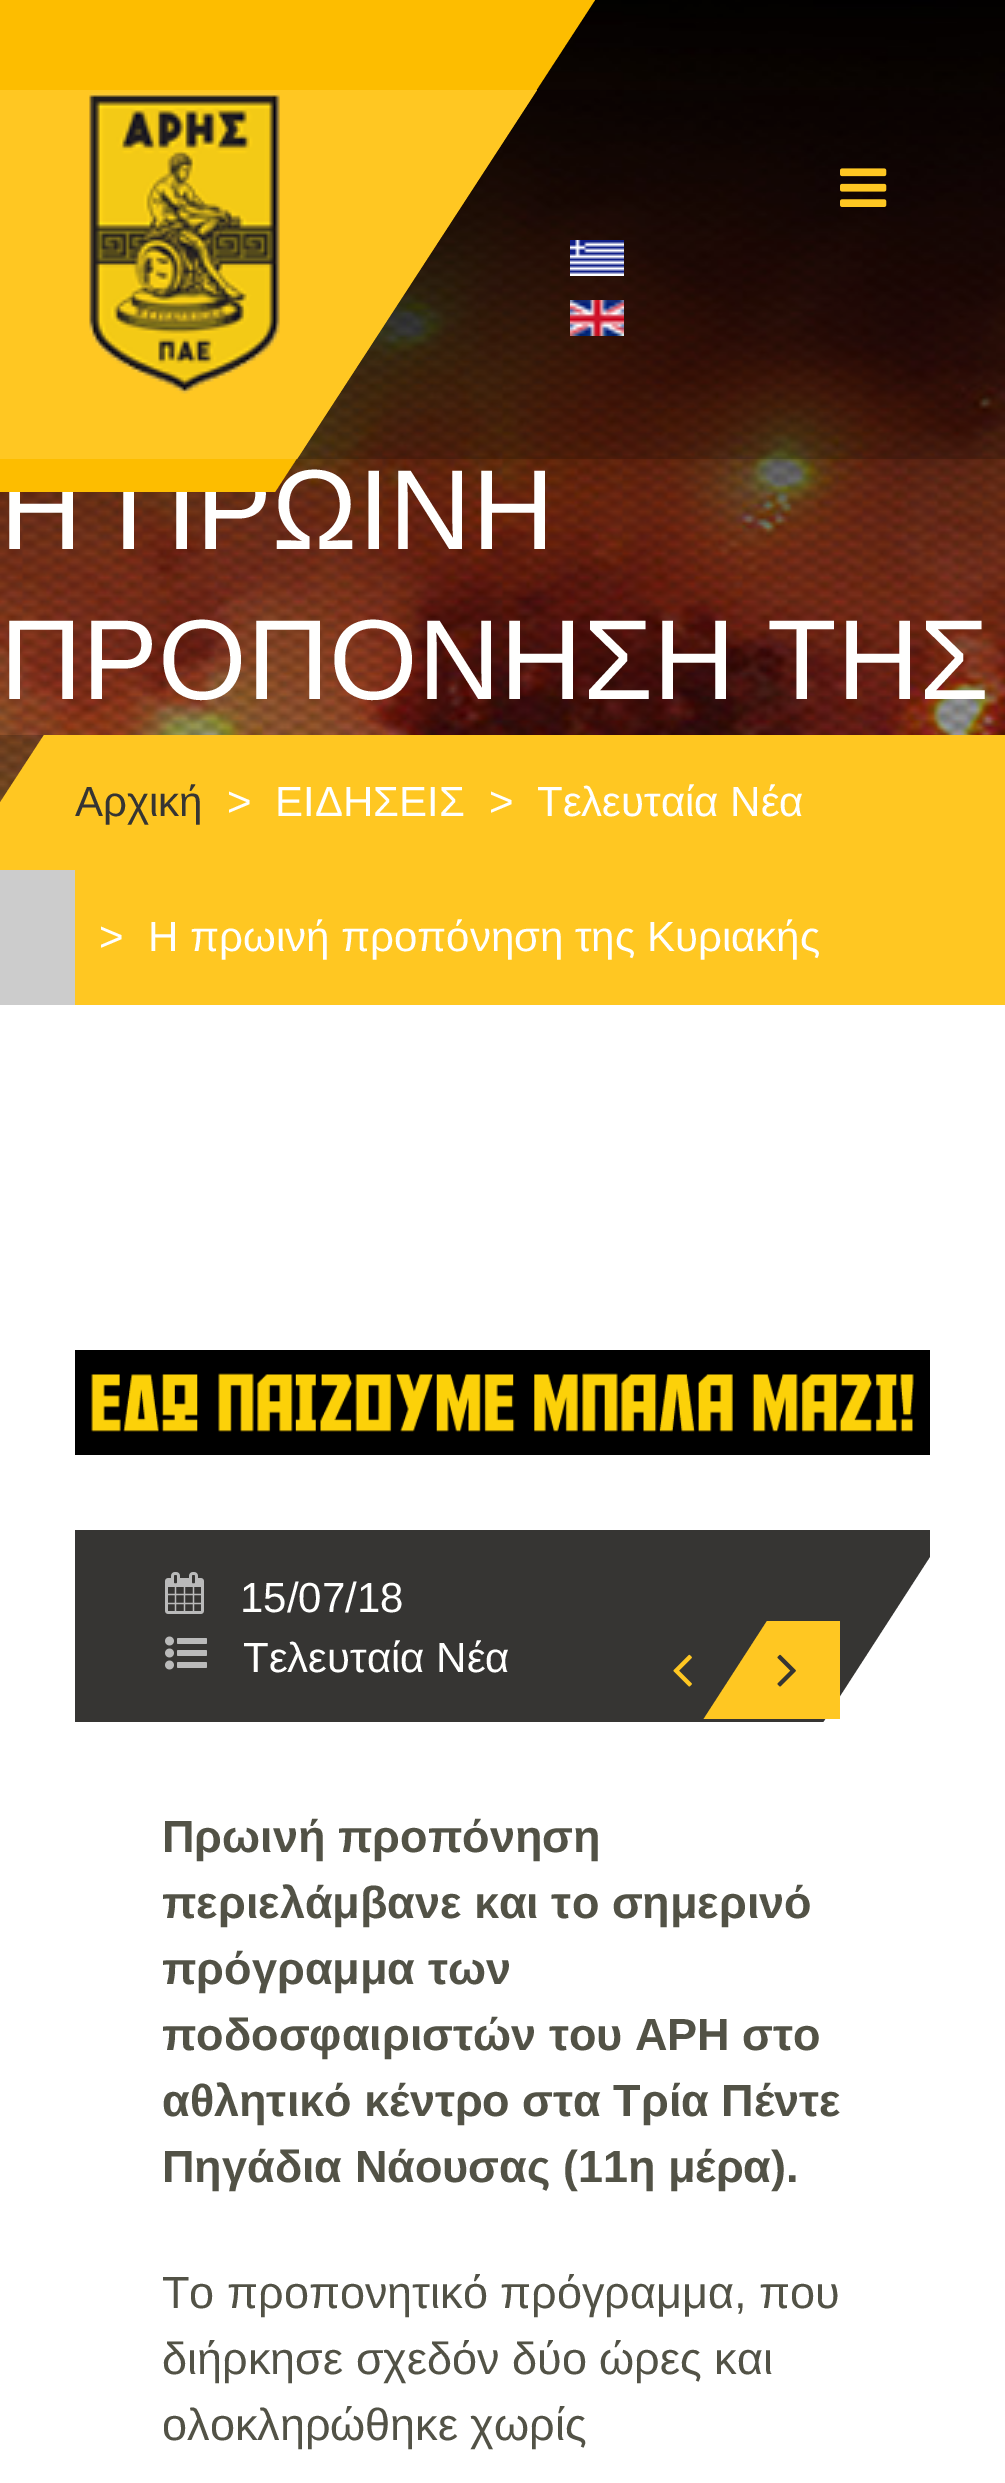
%!PS-Adobe-3.0
%%BoundingBox: 0 0 1005 2483
%%LanguageLevel: 3
%%Pages: 1
%%EndComments
%%BeginProlog
/setink { 3 { 255 div 3 1 roll } repeat setrgbcolor } def
/usefont { [ exch dup neg 0 0 3 -1 roll 0 0 ] selectfont } def
/drawtext { setink usefont moveto show } def
/fillbox { setink rectfill } def
/setalpha { dup .setfillconstantalpha .setstrokeconstantalpha } def
/drawimage { 5 dict begin { /h /w /y /x /name } { exch def } forall
  gsave x y translate w h scale
  w h 8 [w 0 0 h 0 0] name (r) file false 3 colorimage grestore end } def
%%EndProlog
%%BeginSetup
<< /PageSize [1005 2483] /PageUsesTransparency true >> setpagedevice
%%EndSetup
%%Page: 1 1
0 .pushpdf14devicefilter
0 2483 translate 1 -1 scale
4 setmiterlimit
0 0 1005 2483 255 255 255 fillbox
(assets/img5.rgb) 0 0 1005 803 drawimage
0.2 setalpha
297 90 708 369 0 0 0 fillbox
1 setalpha
(assets/img3.rgb) 570 240 54 36 drawimage
(assets/img4.rgb) 570 300 54 36 drawimage
(Η ΠΡΩΙΝΗ) 0 549 /LiberationSans-Regular 114 255 255 254 drawtext
253 189 0 setink
-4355 0 moveto 595 0 lineto 275 492 lineto -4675 492 lineto closepath fill
255 199 34 setink
-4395 90 moveto 537 90 lineto 297 459 lineto -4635 459 lineto closepath fill
(assets/img1.rgb) 89 92 191 302 drawimage
(assets/img2.rgb) 840 168 47 39 drawimage
(ΠΡΟΠΟΝΗΣΗ ΤΗΣ) 0 699 /LiberationSans-Regular 114 255 255 254 drawtext
75 735 930 270 255 199 34 fillbox
0.2 setalpha
0 735 75 270 0 0 0 fillbox
1 setalpha
(>) 227 816 /LiberationSans-Regular 42 255 255 254 drawtext
255 199 34 setink
44 735 moveto 235 735 lineto 148 870 lineto -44 870 lineto closepath fill
(Αρχική) 75 816 /LiberationSans-Regular 42 54 53 51 drawtext
(ΕΙΔΗΣΕΙΣ) 275 816 /LiberationSans-Regular 42 255 255 254 drawtext
(>) 489 816 /LiberationSans-Regular 42 255 255 254 drawtext
(Τελευταία Νέα) 537 816 /LiberationSans-Regular 42 255 255 254 drawtext
(>) 99 951 /LiberationSans-Regular 42 255 255 254 drawtext
(Η πρωινή προπόνηση της Κυριακής) 148 951 /LiberationSans-Regular 42 255 255 254 drawtext
(assets/img6.rgb) 75 1350 855 105 drawimage
75 1530 855 192 54 53 51 fillbox
(assets/img7.rgb) 165 1572 39 42 drawimage
(15/07/18) 240 1612 /LiberationSans-Regular 42 255 255 254 drawtext
255 255 255 setink
947 1531 moveto 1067 1531 lineto 943 1723 lineto 823 1723 lineto closepath fill
(assets/img8.rgb) 165 1636 42 34 drawimage
(Τελευταία Νέα) 243 1672 /LiberationSans-Regular 42 255 255 254 drawtext
(assets/img9.rgb) 673 1654 19 33 drawimage
gsave
630 1620 210 99 rectclip
255 199 34 setink
767 1621 moveto 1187 1621 lineto 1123 1720 lineto 703 1720 lineto closepath fill
grestore
(assets/img10.rgb) 777 1654 19 33 drawimage
(Πρωινή προπόνηση) 162 1852 /LiberationSans-Bold 45 82 82 70 drawtext
(περιελάμβανε και το σημερινό) 162 1918 /LiberationSans-Bold 45 82 82 70 drawtext
(πρόγραμμα των) 162 1984 /LiberationSans-Bold 45 82 82 70 drawtext
(ποδοσφαιριστών του ΑΡΗ στο) 162 2050 /LiberationSans-Bold 45 82 82 70 drawtext
(αθλητικό κέντρο στα Τρία Πέντε) 162 2116 /LiberationSans-Bold 45 82 82 70 drawtext
(Πηγάδια Νάουσας \(11η μέρα\).) 162 2182 /LiberationSans-Bold 45 82 82 70 drawtext
(Το προπονητικό πρόγραμμα, που) 162 2308 /LiberationSans-Regular 45 82 82 70 drawtext
(διήρκησε σχεδόν δύο ώρες και) 162 2374 /LiberationSans-Regular 45 82 82 70 drawtext
(ολοκληρώθηκε χωρίς) 162 2440 /LiberationSans-Regular 45 82 82 70 drawtext
.poppdf14devicefilter showpage
%%EOF
